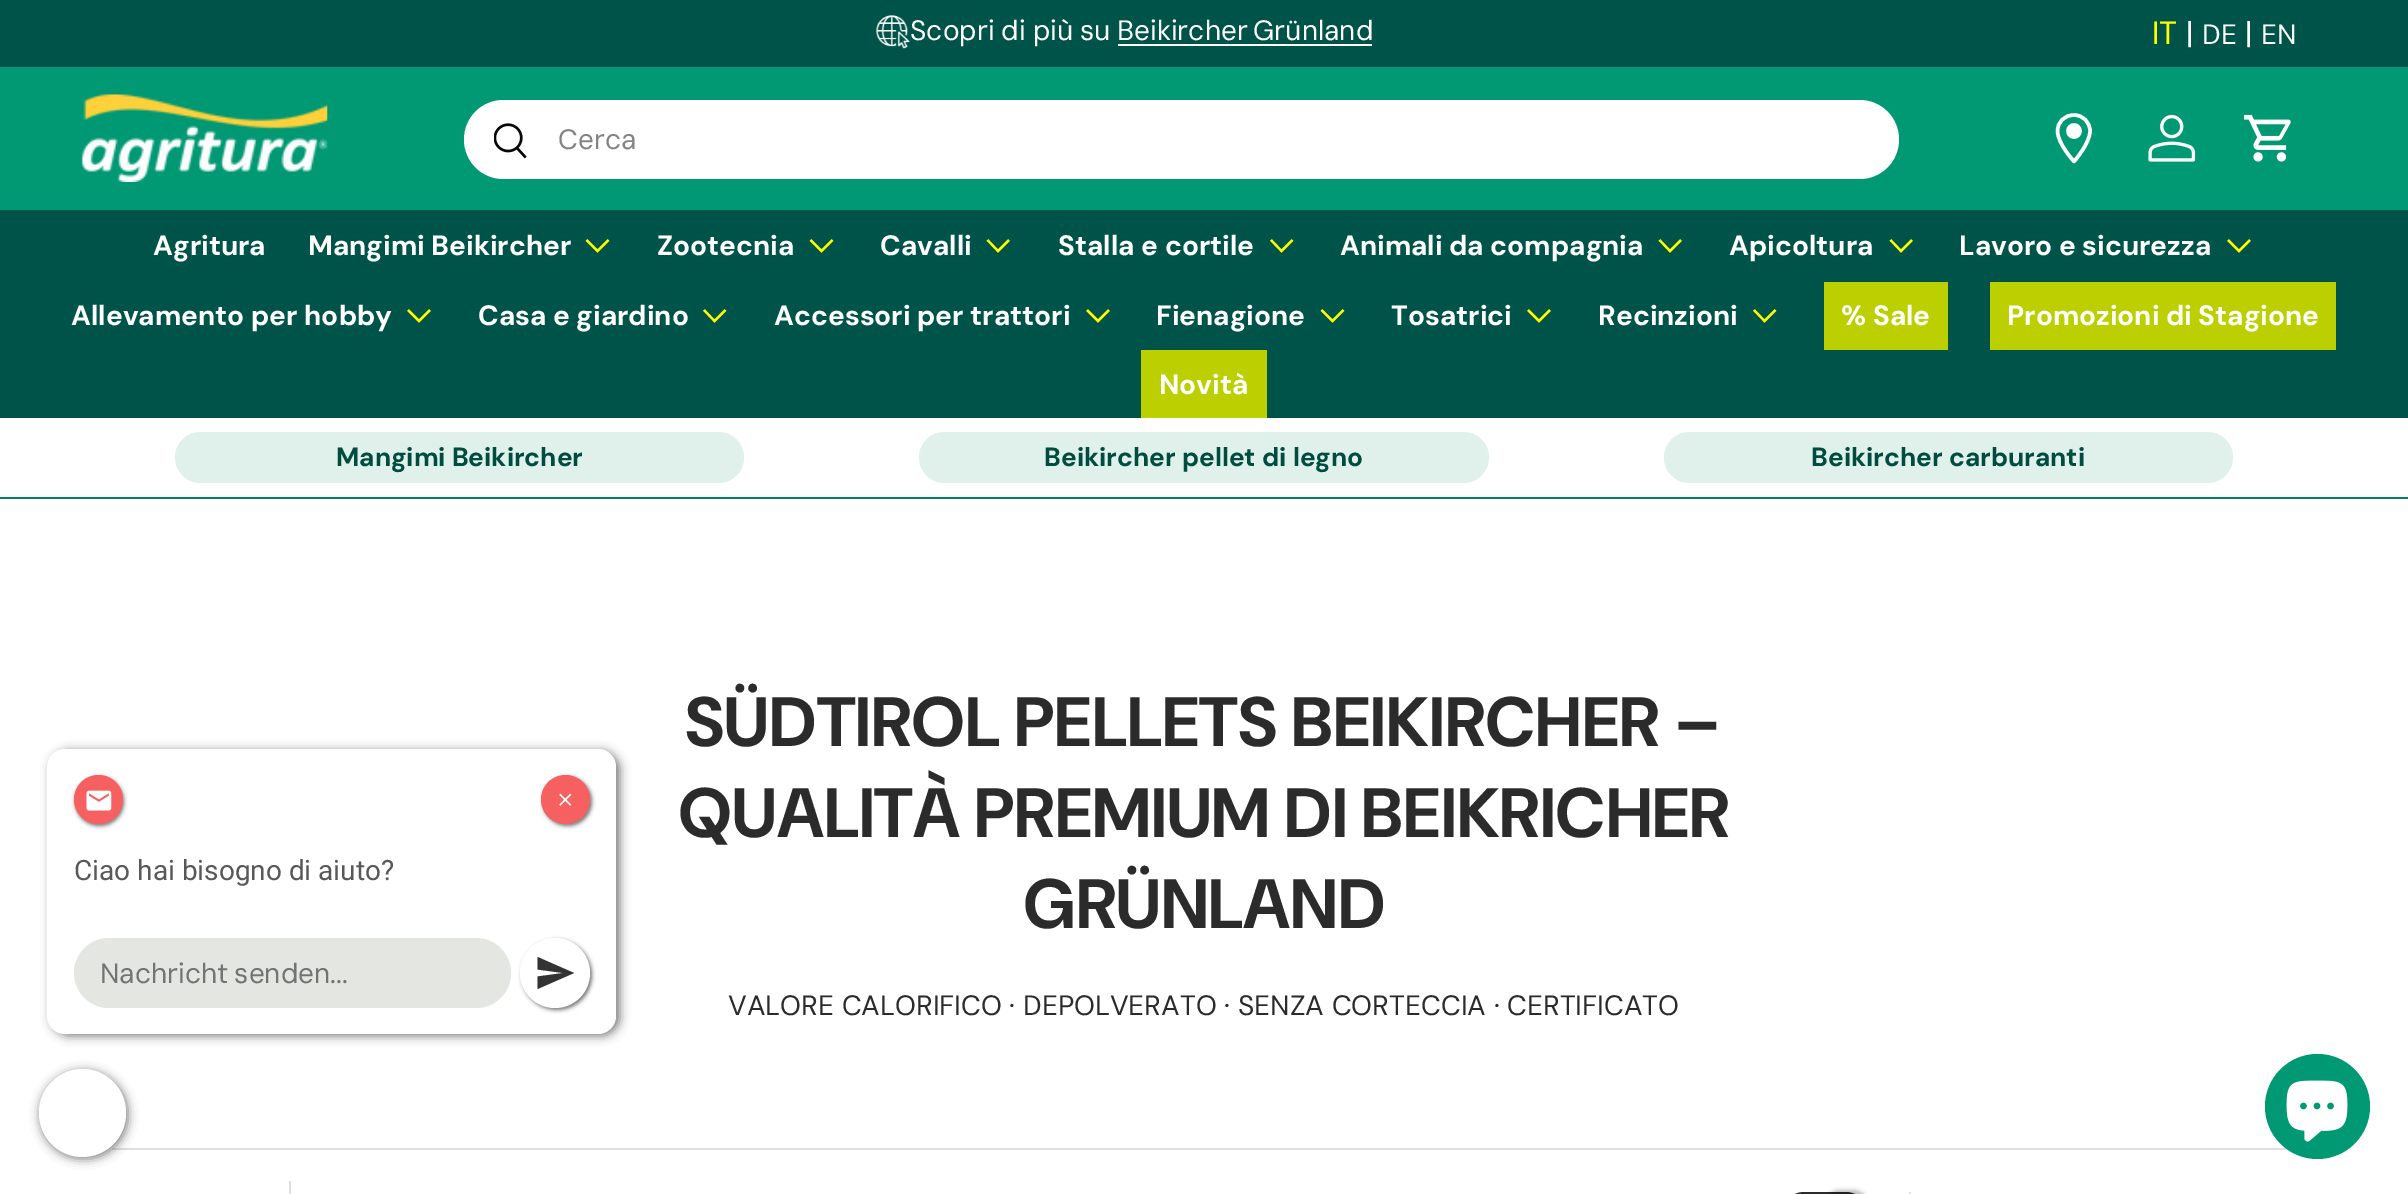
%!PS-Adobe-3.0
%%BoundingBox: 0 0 2408 1194
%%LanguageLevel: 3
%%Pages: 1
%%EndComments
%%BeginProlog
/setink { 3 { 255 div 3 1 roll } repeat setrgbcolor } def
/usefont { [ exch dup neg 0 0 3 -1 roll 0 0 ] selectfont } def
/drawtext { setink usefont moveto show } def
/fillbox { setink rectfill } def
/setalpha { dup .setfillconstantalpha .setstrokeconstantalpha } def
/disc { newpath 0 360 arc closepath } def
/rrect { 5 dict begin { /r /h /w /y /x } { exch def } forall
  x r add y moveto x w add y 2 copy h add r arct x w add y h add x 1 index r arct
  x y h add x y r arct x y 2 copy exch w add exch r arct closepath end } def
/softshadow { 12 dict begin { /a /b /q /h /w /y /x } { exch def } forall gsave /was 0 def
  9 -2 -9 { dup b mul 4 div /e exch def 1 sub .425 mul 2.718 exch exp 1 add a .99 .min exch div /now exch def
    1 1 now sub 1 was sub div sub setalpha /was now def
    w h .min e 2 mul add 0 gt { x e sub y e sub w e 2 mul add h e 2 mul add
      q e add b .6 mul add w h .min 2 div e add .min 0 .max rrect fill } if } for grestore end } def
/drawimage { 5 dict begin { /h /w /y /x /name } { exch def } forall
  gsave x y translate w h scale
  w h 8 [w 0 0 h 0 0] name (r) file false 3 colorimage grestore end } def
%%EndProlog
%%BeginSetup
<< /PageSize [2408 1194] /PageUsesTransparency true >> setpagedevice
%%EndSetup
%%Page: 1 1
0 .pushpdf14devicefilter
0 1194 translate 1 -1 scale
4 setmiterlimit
0 0 2408 1194 255 255 255 fillbox
0 0 2408 67 0 83 73 fillbox
(assets/img1.rgb) 876 15 34 34 drawimage
/DMSans-Regular 28 usefont
255 255 255 setink
910 40 moveto -0.5 0 32 (Scopri di più su) widthshow
1117 40 moveto -2 0 32 (Beikircher Grünland) widthshow
1118 44 254 2 255 255 255 fillbox
(IT) 2152 44 /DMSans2-Regular 32 255 255 0 drawtext
(|) 2186 44 /DMSans2-Regular 32 255 255 255 drawtext
(DE) 2202 44 /DMSans-Regular 28 255 255 255 drawtext
(|) 2245 44 /DMSans2-Regular 32 255 255 255 drawtext
(EN) 2261 44 /DMSans-Regular 28 255 255 255 drawtext
0 67 2408 143 0 153 115 fillbox
0 497 2408 2 1 131 99 fillbox
(assets/img2.rgb) 81 94 247 88 drawimage
255 255 255 setink
464 100 1435 79 39.5 rrect fill
(assets/img3.rgb) 494 123 33 36 drawimage
(Cerca) 558 149 /DMSans-Regular 28 131 131 131 drawtext
255 255 255 setink
3.5 setlinewidth
1 setlinecap
1 setlinejoin
2074 115 moveto 2064.5 115 2057.5 122 2057.5 131 curveto 2057.5 143.5 2074 161.5 2074 161.5 curveto 2074 161.5 2090 143.5 2090 131 curveto 2090 122 2083 115 2074 115 curveto closepath stroke
2074 131 6 disc gsave fill grestore
0 setlinecap
0 setlinejoin
stroke
(assets/img4.rgb) 2148 114 48 48 drawimage
(assets/img5.rgb) 2244 114 47 48 drawimage
0 210 2408 208 0 83 73 fillbox
(Agritura) 153 255 /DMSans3-Bold 28 255 255 255 drawtext
(Mangimi Beikircher) 308 255 /DMSans3-Bold 28 255 255 255 drawtext
255 255 0 setink
2.2 setlinewidth
608.5 240 moveto 597.5 251 lineto 586.5 240 lineto stroke
(Zootecnia) 657 255 /DMSans3-Bold 28 255 255 255 drawtext
255 255 0 setink
832.5 240 moveto 821.5 251 lineto 810.5 240 lineto stroke
(Cavalli) 880 255 /DMSans3-Bold 28 255 255 255 drawtext
255 255 0 setink
1009 240 moveto 998 251 lineto 987.5 240 lineto stroke
(Stalla e cortile) 1058 255 /DMSans3-Bold 28 255 255 255 drawtext
255 255 0 setink
1292.5 240 moveto 1281.5 251 lineto 1271 240 lineto stroke
(Animali da compagnia) 1340 255 /DMSans3-Bold 28 255 255 255 drawtext
255 255 0 setink
1681 240 moveto 1670 251 lineto 1659.5 240 lineto stroke
(Apicoltura) 1729 255 /DMSans3-Bold 28 255 255 255 drawtext
255 255 0 setink
1912 240 moveto 1901 251 lineto 1890.5 240 lineto stroke
(Lavoro e sicurezza) 1959 255 /DMSans3-Bold 28 255 255 255 drawtext
255 255 0 setink
2250 240 moveto 2239 251 lineto 2228 240 lineto stroke
(Allevamento per hobby) 71 325 /DMSans3-Bold 28 255 255 255 drawtext
255 255 0 setink
430 310 moveto 419 321 lineto 408 310 lineto stroke
(Casa e giardino) 478 325 /DMSans3-Bold 28 255 255 255 drawtext
255 255 0 setink
725.5 310 moveto 714.5 321 lineto 704 310 lineto stroke
(Accessori per trattori) 774 325 /DMSans3-Bold 28 255 255 255 drawtext
255 255 0 setink
1109 310 moveto 1098 321 lineto 1087 310 lineto stroke
(Fienagione) 1156 325 /DMSans3-Bold 28 255 255 255 drawtext
255 255 0 setink
1343.5 310 moveto 1332.5 321 lineto 1321.5 310 lineto stroke
(Tosatrici) 1391 325 /DMSans3-Bold 28 255 255 255 drawtext
255 255 0 setink
1550 310 moveto 1539 321 lineto 1528 310 lineto stroke
(Recinzioni) 1598 325 /DMSans3-Bold 28 255 255 255 drawtext
255 255 0 setink
1775.5 310 moveto 1764.5 321 lineto 1754 310 lineto stroke
1824 282 124 68 188 207 0 fillbox
(% Sale) 1841 325 /DMSans3-Bold 28 255 255 255 drawtext
1990 282 346 68 188 207 0 fillbox
(Promozioni di Stagione) 2007 325 /DMSans3-Bold 28 255 255 255 drawtext
1141 350 126 68 188 207 0 fillbox
(Novità) 1159 394 /DMSans3-Bold 28 255 255 255 drawtext
224 240 235 setink
175 432 569 51 25.5 rrect fill
(Mangimi Beikircher) 336 466 /DMSans2-Bold 26.25 0 77 64 drawtext
224 240 235 setink
919 432 570 51 25.5 rrect fill
(Beikircher pellet di legno) 1044 466 /DMSans2-Bold 26.25 0 77 64 drawtext
224 240 235 setink
1664 432 569 51 25.5 rrect fill
(Beikircher carburanti) 1811 466 /DMSans2-Bold 26.25 0 77 64 drawtext
68 68 68 setink
51 751 569 285 18 5 0.71 softshadow
255 255 255 setink
47 749 569 285 18 rrect fill
68 68 68 setink
75 777 49 49 24.5 2 0.71 softshadow
247 96 96 setink
98.5 799.5 24.5 disc fill
(assets/img6.rgb) 86 790 26 21 drawimage
68 68 68 setink
543 777 49 49 24.5 2 0.71 softshadow
247 96 96 setink
565.5 799.5 24.5 disc fill
(assets/img7.rgb) 559 793 13 13 drawimage
(Ciao hai bisogno di aiuto?) 74 880 /Roboto-Regular 28 88 88 88 drawtext
227 230 225 setink
74 938 437 70 35 rrect fill
/DMSans-Regular 28 usefont
115 116 114 setink
100 983 moveto -2 0 32 (Nachricht senden...) widthshow
68 68 68 setink
522 940 70 70 35 2 0.71 softshadow
255 255 255 setink
555 973 35 disc fill
51 51 51 setink
537.5 989 moveto 537.5 976.5 lineto 563.5 973 lineto 537.5 969.5 lineto 537.5 957 lineto 574 973 lineto closepath fill
112 1148 2184 2 223 223 223 fillbox
68 68 68 setink
40 1071 88 88 44 5 0.71 softshadow
255 255 255 setink
39 1069 87 88 43.5 rrect fill
(SÜDTIROL PELLETS BEIKIRCHER –) 685 746 /DMSans-Bold 69.8 42 43 42 drawtext
(QUALITÀ PREMIUM DI BEIKRICHER) 678 837 /DMSans-Bold 69.8 42 43 42 drawtext
(GRÜNLAND) 1023 928 /DMSans-Bold 69.8 42 43 42 drawtext
/DMSans-Regular 28 usefont
728 1015 moveto 0.25 0 32 (VALORE CALORIFICO · DEPOLVERATO · SENZA CORTECCIA · CERTIFICATO) widthshow
289 1181 2 13 223 223 223 fillbox
42 43 42 setink
1783 1192 84 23 21 rrect fill
0 0 0 setink
1824 1190 45 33 22.5 2 0.25 softshadow
1909 1192 2 2 223 223 223 fillbox
0 153 115 setink
2317.5 1106.5 52.5 disc fill
(assets/img8.rgb) 2286 1080 62 62 drawimage
.poppdf14devicefilter showpage
%%EOF
